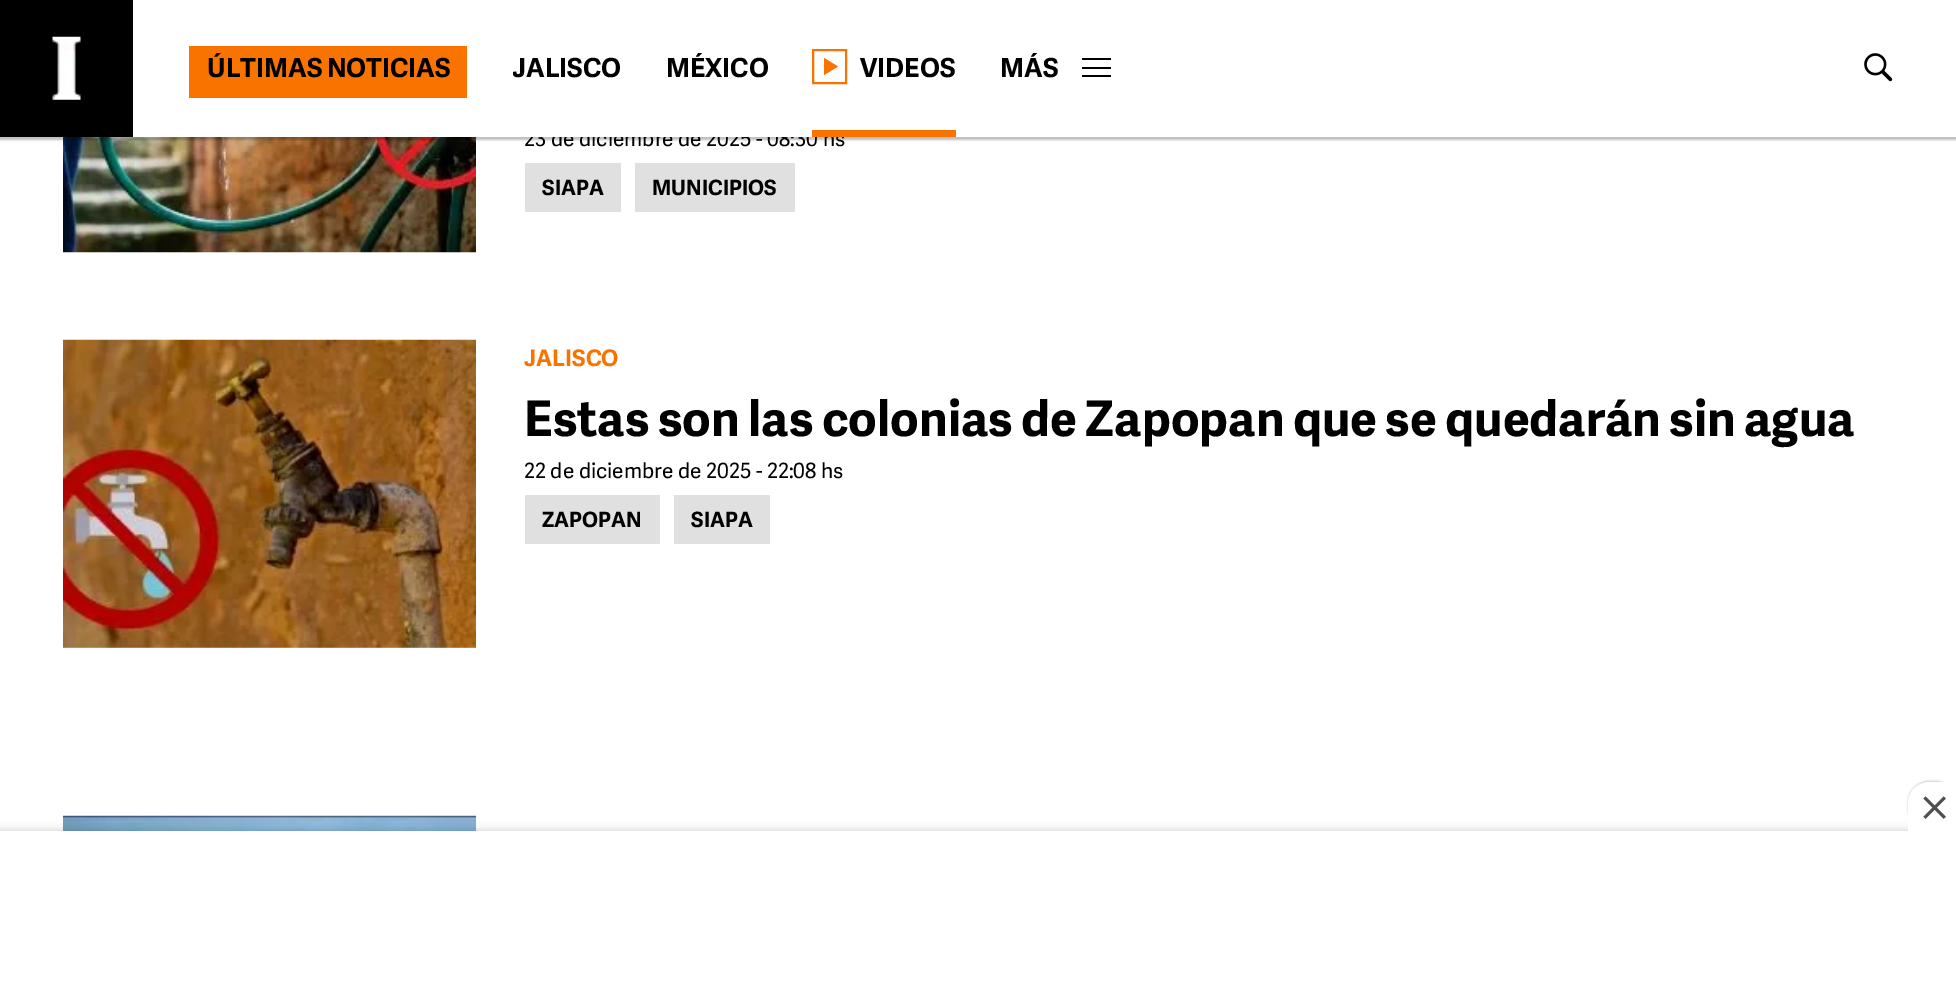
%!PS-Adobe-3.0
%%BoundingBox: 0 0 1956 995
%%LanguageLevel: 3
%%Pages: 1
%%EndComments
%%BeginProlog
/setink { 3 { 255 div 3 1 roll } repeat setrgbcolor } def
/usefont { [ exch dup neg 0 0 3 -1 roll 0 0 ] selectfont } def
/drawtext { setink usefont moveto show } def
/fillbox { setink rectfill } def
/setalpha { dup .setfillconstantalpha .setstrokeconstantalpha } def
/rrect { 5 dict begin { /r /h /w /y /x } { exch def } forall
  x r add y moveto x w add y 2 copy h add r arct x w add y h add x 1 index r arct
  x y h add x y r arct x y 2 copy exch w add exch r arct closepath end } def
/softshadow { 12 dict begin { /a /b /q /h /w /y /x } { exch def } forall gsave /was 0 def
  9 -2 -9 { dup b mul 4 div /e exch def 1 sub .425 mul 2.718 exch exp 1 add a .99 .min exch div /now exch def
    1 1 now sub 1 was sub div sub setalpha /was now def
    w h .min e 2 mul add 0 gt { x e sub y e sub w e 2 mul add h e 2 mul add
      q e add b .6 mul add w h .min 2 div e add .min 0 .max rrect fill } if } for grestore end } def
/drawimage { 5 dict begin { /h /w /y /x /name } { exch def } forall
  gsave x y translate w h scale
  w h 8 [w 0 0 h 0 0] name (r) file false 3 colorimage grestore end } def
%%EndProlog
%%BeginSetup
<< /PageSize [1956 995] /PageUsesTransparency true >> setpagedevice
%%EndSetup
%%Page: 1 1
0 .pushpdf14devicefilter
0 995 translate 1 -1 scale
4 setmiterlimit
0 0 1956 995 255 255 255 fillbox
(assets/img3.rgb) 63 137 413 116 drawimage
0 0 0 setink
-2 0 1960 140 0 1 0.25 softshadow
(23 de diciembre de 2025 - 08:30 hs) 524 146 /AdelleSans-Regular 21 0 0 0 drawtext
133 0 1823 137 255 255 255 fillbox
0 0 133 137 0 0 0 fillbox
(assets/img1.rgb) 52 36 29 64 drawimage
189 46 278 52 249 115 0 fillbox
(ÚLTIMAS NOTICIAS) 207 77 /AdelleSans-Bold 26.25 0 0 0 drawtext
gsave
513 46 108 91 rectclip
(JALISCO) 512 77 /AdelleSans-Bold 26.25 0 0 0 drawtext
grestore
(MÉXICO) 666 77 /AdelleSans-Bold 26.25 0 0 0 drawtext
249 115 0 setink
2 setlinewidth
813 50 33 33 rectstroke
824 75 moveto 824 58 lineto 838 66.5 lineto closepath fill
(VIDEOS) 860 77 /AdelleSans-Bold 26.25 0 0 0 drawtext
812 130 144 7 249 115 0 fillbox
(MÁS) 1000 77 /AdelleSans-Bold 26.25 0 0 0 drawtext
1082 67 29 2 0 0 0 fillbox
1082 58 29 2 0 0 0 fillbox
1082 75 29 2 0 0 0 fillbox
(assets/img2.rgb) 1864 53 29 29 drawimage
525 163 96 49 224 224 224 fillbox
(SIAPA) 542 195 /AdelleSans-Bold 21 0 0 0 drawtext
635 163 160 49 224 224 224 fillbox
(MUNICIPIOS) 652 195 /AdelleSans-Bold 21 0 0 0 drawtext
(assets/img4.rgb) 63 339 413 309 drawimage
(JALISCO) 524 366 /AdelleSans-Bold 22.75 249 115 0 drawtext
(Estas son las colonias de Zapopan que se quedarán sin agua) 524 436 /AdelleSans-Bold 49 0 0 0 drawtext
(22 de diciembre de 2025 - 22:08 hs) 524 478 /AdelleSans-Regular 21 0 0 0 drawtext
525 495 135 49 224 224 224 fillbox
(ZAPOPAN) 542 527 /AdelleSans-Bold 21 0 0 0 drawtext
674 495 96 49 224 224 224 fillbox
(SIAPA) 691 527 /AdelleSans-Bold 21 0 0 0 drawtext
(assets/img5.rgb) 63 815 413 16 drawimage
0 831 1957 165 0 4.5 0.2 softshadow
0 838 1956 157 255 255 255 fillbox
0 0 0 setink
1908 781 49 49 21 1 0.2 softshadow
255 255 255 setink
1929 782 moveto 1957 782 lineto 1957 831 lineto 1908 831 lineto 1908 803 lineto 1908 791.5 1917.5 782 1929 782 curveto closepath fill
(assets/img6.rgb) 1923 796 23 23 drawimage
0 831 1956 7 255 255 255 fillbox
.poppdf14devicefilter showpage
%%EOF
